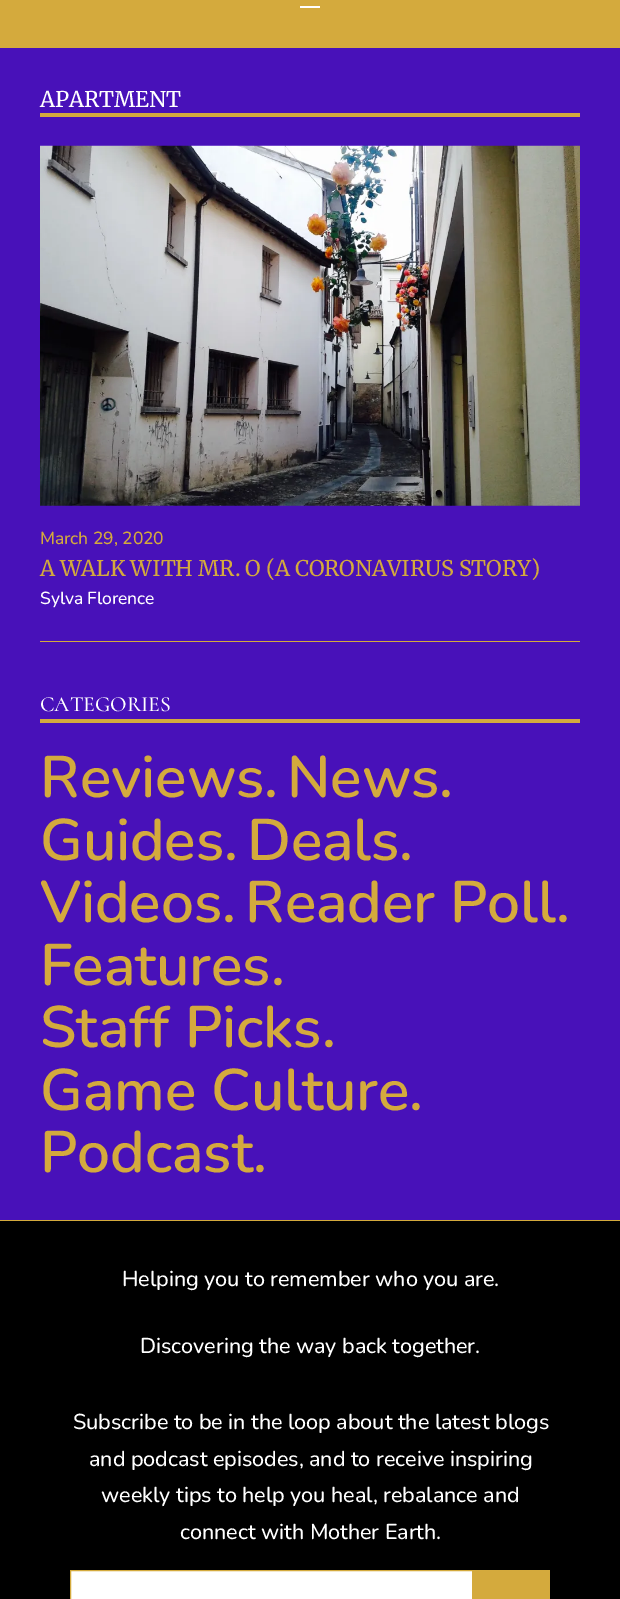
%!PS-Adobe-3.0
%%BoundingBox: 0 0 620 1599
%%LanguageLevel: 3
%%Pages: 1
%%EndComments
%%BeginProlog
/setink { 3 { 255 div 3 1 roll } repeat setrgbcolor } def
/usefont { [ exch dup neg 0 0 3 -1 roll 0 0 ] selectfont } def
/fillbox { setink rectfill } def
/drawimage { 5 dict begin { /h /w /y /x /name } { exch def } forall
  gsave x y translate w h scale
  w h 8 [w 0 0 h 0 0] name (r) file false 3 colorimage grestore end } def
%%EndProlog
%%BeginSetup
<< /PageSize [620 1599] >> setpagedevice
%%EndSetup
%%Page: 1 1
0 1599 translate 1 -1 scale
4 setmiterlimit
0 0 620 1599 72 17 185 fillbox
0 0 620 48 212 170 61 fillbox
300 6 20 2 255 255 255 fillbox
40 113 540 4 212 170 61 fillbox
/Merriweather-Regular 21.6 usefont
255 255 255 setink
40 107 moveto -0.1 0 (APARTMENT) ashow
(assets/img1.rgb) 40 145 540 361 drawimage
/Nunito-Medium 17.5 usefont
212 170 61 setink
40 544 moveto -0.1 0 (March 29, 2020) ashow
/Merriweather-Regular 21.6 usefont
40 576 moveto -0.1 0 (A WALK WITH MR. O \(A CORONAVIRUS STORY\)) ashow
/Nunito-Medium 17.5 usefont
255 255 255 setink
40 604 moveto -0.1 0 (Sylva Florence) ashow
40 641 540 1 212 170 61 fillbox
40 719 540 4 212 170 61 fillbox
/Cormorant-Medium 21.6 usefont
255 255 255 setink
40 711 moveto -0.1 0 (CATEGORIES) ashow
/Nunito-SemiBold 58.5 usefont
212 170 61 setink
40 797 moveto -0.1 0 (Reviews.) ashow
287 797 moveto -0.1 0 (News.) ashow
40 860 moveto -0.1 0 (Guides.) ashow
247 860 moveto -0.1 0 (Deals.) ashow
40 922 moveto -0.1 0 (Videos.) ashow
245 922 moveto -0.1 0 (Reader Poll.) ashow
40 985 moveto -0.1 0 (Features.) ashow
40 1047 moveto -0.1 0 (Staff Picks.) ashow
40 1110 moveto -0.1 0 (Game Culture.) ashow
40 1172 moveto -0.1 0 (Podcast.) ashow
0 1221 620 378 0 0 0 fillbox
0 1220 620 1 212 170 61 fillbox
/Nunito-Medium 21.6 usefont
255 255 255 setink
122 1286 moveto -0.1 0 (Helping you to remember who you are.) ashow
140 1353 moveto -0.1 0 (Discovering the way back together.) ashow
73 1429 moveto -0.1 0 (Subscribe to be in the loop about the latest blogs) ashow
89 1466 moveto -0.1 0 (and podcast episodes, and to receive inspiring) ashow
101 1502 moveto -0.1 0 (weekly tips to help you heal, rebalance and) ashow
180 1539 moveto -0.1 0 (connect with Mother Earth.) ashow
70.5 1570.5 moveto 472.5 1570.5 lineto 472.5 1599.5 lineto 70.5 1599.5 lineto closepath gsave fill grestore
212 170 61 setink
stroke
473 1570 77 29 212 170 61 fillbox
showpage
%%EOF
